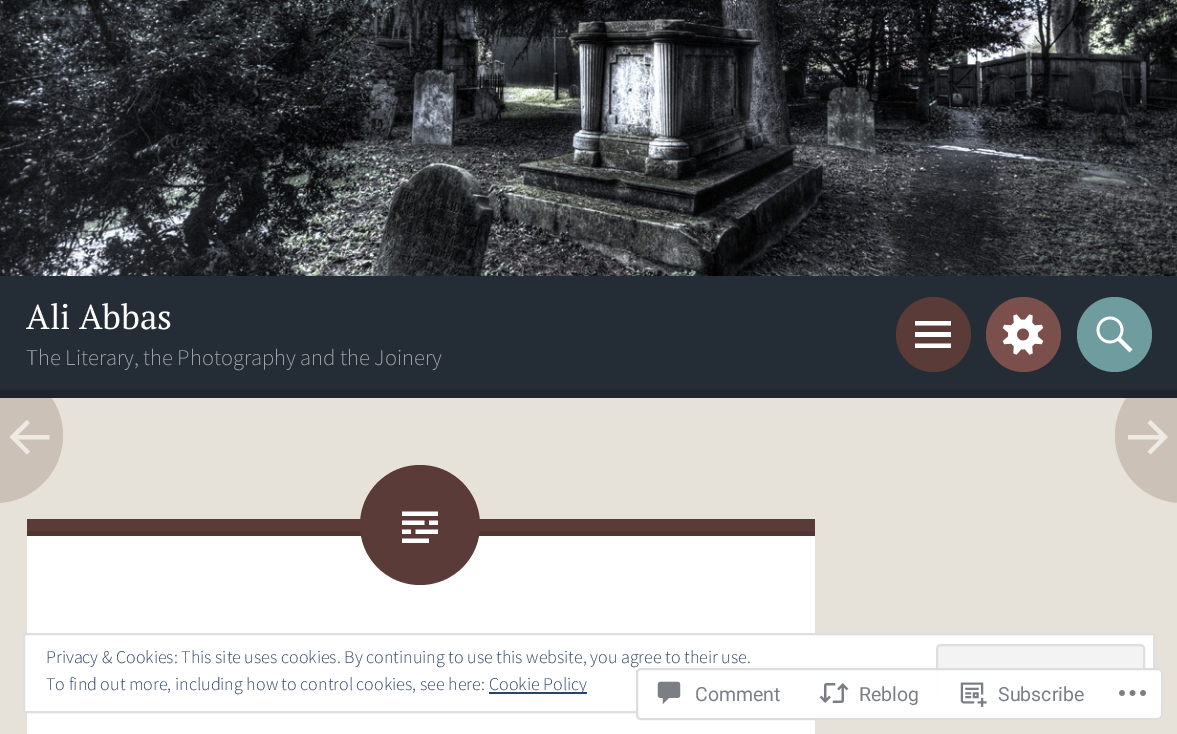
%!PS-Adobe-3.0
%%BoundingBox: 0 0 1177 734
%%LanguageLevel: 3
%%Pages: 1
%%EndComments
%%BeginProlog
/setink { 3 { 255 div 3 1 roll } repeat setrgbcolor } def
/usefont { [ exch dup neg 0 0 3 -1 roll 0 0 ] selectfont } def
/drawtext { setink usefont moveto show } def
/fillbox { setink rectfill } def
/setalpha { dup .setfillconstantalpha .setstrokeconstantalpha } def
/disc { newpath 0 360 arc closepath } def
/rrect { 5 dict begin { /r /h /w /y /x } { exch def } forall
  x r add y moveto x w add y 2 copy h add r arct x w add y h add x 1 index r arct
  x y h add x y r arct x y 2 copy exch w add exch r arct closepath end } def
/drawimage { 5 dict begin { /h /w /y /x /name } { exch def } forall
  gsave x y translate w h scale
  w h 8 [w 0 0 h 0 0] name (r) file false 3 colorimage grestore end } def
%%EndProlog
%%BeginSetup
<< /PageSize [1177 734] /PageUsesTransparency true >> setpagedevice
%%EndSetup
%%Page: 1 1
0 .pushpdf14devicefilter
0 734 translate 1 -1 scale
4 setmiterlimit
0 0 1177 734 231 226 217 fillbox
203 193 183 setink
-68 368 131 135 67.5 rrect fill
1115 368 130 135 67.5 rrect fill
0 276 1177 114 36 45 54 fillbox
0 390 1177 8 30 37 45 fillbox
(assets/img1.rgb) 0 0 1177 276 drawimage
(Ali Abbas) 26 329 /PTSerif-Regular 34.5 255 255 255 drawtext
(The Literary, the Photography and the Joinery) 26 365 /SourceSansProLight-Light 22.5 158 163 167 drawtext
91 59 56 setink
933.5 334.5 37.5 disc fill
255 255 255 setink
915 348 moveto 915 343.5 lineto 951 343.5 lineto 951 348 lineto closepath 915 321 moveto 951 321 lineto 951 325.5 lineto 915 325.5 lineto closepath 915 337 moveto 915 332 lineto 951 332 lineto 951 337 lineto closepath fill
123 79 75 setink
1023.5 334.5 37.5 disc fill
(assets/img2.rgb) 1002 314 42 41 drawimage
111 157 159 setink
1114.5 334.5 37.5 disc fill
(assets/img3.rgb) 1096 316 37 37 drawimage
237 233 227 setink
27 420 moveto 30 423 lineto 18 435 lineto 49.5 435 lineto 49.5 439.5 lineto 18 439.5 lineto 30 451.5 lineto 27 454.5 lineto 9.5 437 lineto closepath fill
1150.5 420 moveto 1168 437 lineto 1150.5 454.5 lineto 1147.5 451.5 lineto 1159.5 439.5 lineto 1128 439.5 lineto 1128 435 lineto 1159.5 435 lineto 1147.5 423 lineto closepath fill
27 536 788 198 255 255 255 fillbox
27 519 788 12 91 59 56 fillbox
27 531 788 5 82 53 50 fillbox
91 59 56 setink
420 525 60 disc fill
(assets/img4.rgb) 402 511 36 32 drawimage
255 255 255 setink
24 634 moveto 1154 634 lineto 1154 712 lineto 24 712 lineto closepath gsave fill grestore
222 222 222 setink
2 setlinewidth
stroke
(Privacy & Cookies: This site uses cookies. By continuing to use this website, you agree to their use.) 46 663 /SourceSansProLight-Light 18 46 68 103 drawtext
243 243 243 setink
937 645 207 56 4 rrect gsave fill grestore
222 222 222 setink
stroke
(To find out more, including how to control cookies, see here:) 46 690 /SourceSansProLight-Light 18 46 68 103 drawtext
489 692 98 2 46 68 103 fillbox
(Cookie Policy) 489 690 /SourceSansProLight-Light 18 46 68 103 drawtext
0.98 setalpha
255 255 255 setink
636 668 527 52 5 rrect fill
220 220 222 setink
637 669 525 50 4 rrect stroke
1 setalpha
(assets/img5.rgb) 657 681 24 24 drawimage
(Comment) 695 701 /Roboto-Regular 19.5 123 127 133 drawtext
(assets/img6.rgb) 819 683 30 20 drawimage
(Reblog) 859 701 /Roboto-Regular 19.5 123 127 133 drawtext
(assets/img7.rgb) 960 682 27 25 drawimage
(Subscribe) 998 701 /Roboto-Regular 19.5 123 127 133 drawtext
(assets/img8.rgb) 1119 690 27 6 drawimage
.poppdf14devicefilter showpage
%%EOF
